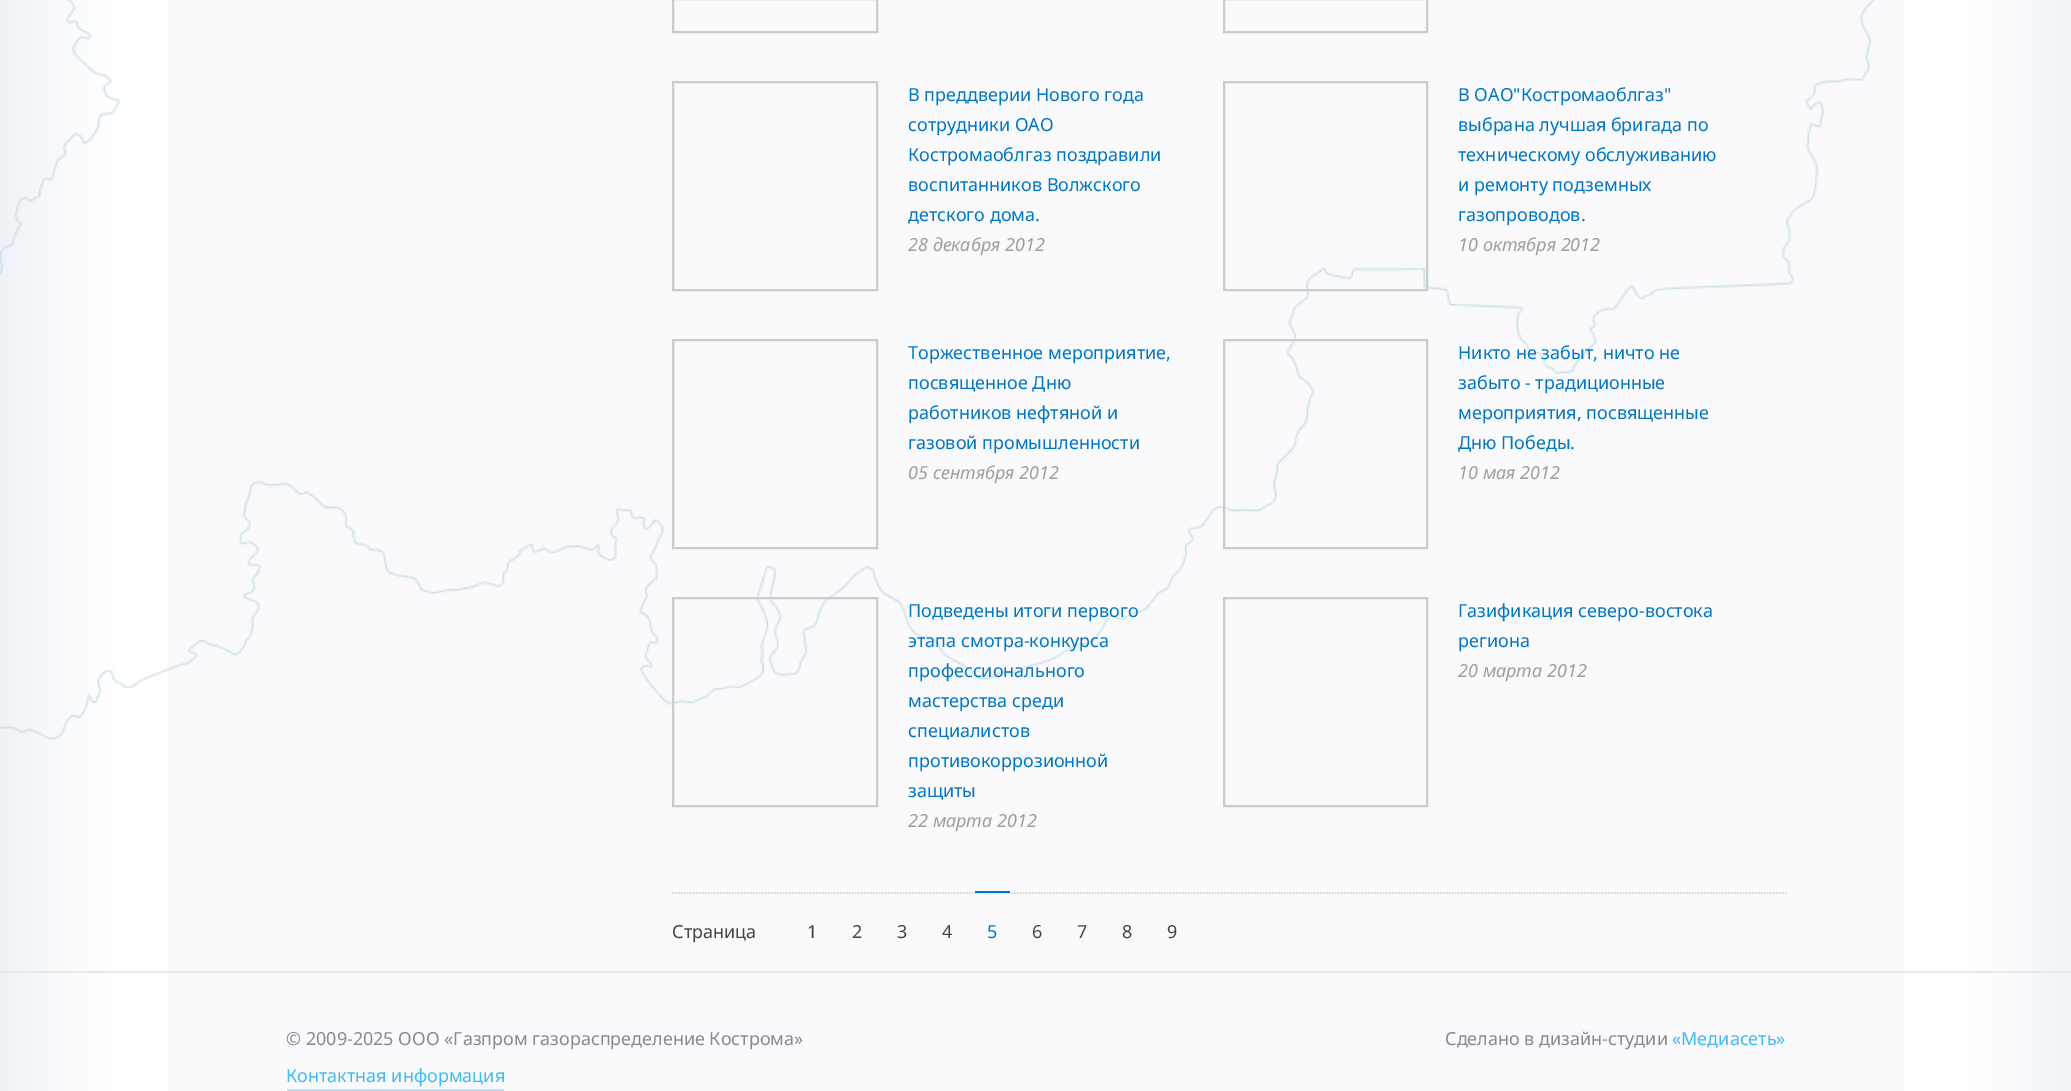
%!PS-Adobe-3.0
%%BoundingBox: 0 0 2071 1091
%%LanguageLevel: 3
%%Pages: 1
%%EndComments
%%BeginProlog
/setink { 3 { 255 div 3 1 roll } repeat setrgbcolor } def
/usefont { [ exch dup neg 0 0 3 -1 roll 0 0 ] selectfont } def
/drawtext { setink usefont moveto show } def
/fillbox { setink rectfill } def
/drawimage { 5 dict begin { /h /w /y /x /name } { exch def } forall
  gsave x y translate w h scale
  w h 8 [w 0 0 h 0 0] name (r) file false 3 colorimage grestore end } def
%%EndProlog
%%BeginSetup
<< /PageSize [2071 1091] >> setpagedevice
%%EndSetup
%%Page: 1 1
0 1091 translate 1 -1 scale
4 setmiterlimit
0 0 2071 1091 250 250 252 fillbox
(assets/img1.rgb) 0 0 168 1091 drawimage
(assets/img2.rgb) 0 0 1875 741 drawimage
(assets/img3.rgb) 1904 0 167 1091 drawimage
203 203 203 setink
2 setlinewidth
673 -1 204 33 rectstroke
1224 -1 203 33 rectstroke
673 82 204 208 rectstroke
(В преддверии Нового года) 908 101 /NotoSans-Regular 18 0 119 196 drawtext
(сотрудники ОАО) 908 131 /NotoSans-Regular 18 0 119 196 drawtext
(Костромаоблгаз поздравили) 908 161 /NotoSans-Regular 18 0 119 196 drawtext
(воспитанников Волжского) 908 191 /NotoSans-Regular 18 0 119 196 drawtext
gsave
908 81 270 180 rectclip
(детского дома.) 908 221 /NotoSans-Regular 18 0 119 196 drawtext
grestore
(28 декабря 2012) 908 251 /NotoSans-Italic 18 159 159 159 drawtext
203 203 203 setink
1224 82 203 208 rectstroke
(В ОАО"Костромаоблгаз") 1458 101 /NotoSans-Regular 18 0 119 196 drawtext
(выбрана лучшая бригада по) 1458 131 /NotoSans-Regular 18 0 119 196 drawtext
(техническому обслуживанию) 1458 161 /NotoSans-Regular 18 0 119 196 drawtext
(и ремонту подземных) 1458 191 /NotoSans-Regular 18 0 119 196 drawtext
(газопроводов.) 1458 221 /NotoSans-Regular 18 0 119 196 drawtext
(10 октября 2012) 1458 251 /NotoSans-Italic 18 159 159 159 drawtext
203 203 203 setink
673 340 204 208 rectstroke
(Торжественное мероприятие,) 908 359 /NotoSans-Regular 18 0 119 196 drawtext
(посвященное Дню) 908 389 /NotoSans-Regular 18 0 119 196 drawtext
(работников нефтяной и) 908 419 /NotoSans-Regular 18 0 119 196 drawtext
(газовой промышленности) 908 449 /NotoSans-Regular 18 0 119 196 drawtext
(05 сентября 2012) 908 479 /NotoSans-Italic 18 159 159 159 drawtext
203 203 203 setink
1224 340 203 208 rectstroke
(Никто не забыт, ничто не) 1458 359 /NotoSans-Regular 18 0 119 196 drawtext
(забыто - традиционные) 1458 389 /NotoSans-Regular 18 0 119 196 drawtext
(мероприятия, посвященные) 1458 419 /NotoSans-Regular 18 0 119 196 drawtext
(Дню Победы.) 1458 449 /NotoSans-Regular 18 0 119 196 drawtext
(10 мая 2012) 1458 479 /NotoSans-Italic 18 159 159 159 drawtext
203 203 203 setink
673 598 204 208 rectstroke
(Подведены итоги первого) 908 617 /NotoSans-Regular 18 0 119 196 drawtext
(этапа смотра-конкурса) 908 647 /NotoSans-Regular 18 0 119 196 drawtext
(профессионального) 908 677 /NotoSans-Regular 18 0 119 196 drawtext
(мастерства среди) 908 707 /NotoSans-Regular 18 0 119 196 drawtext
(специалистов) 908 737 /NotoSans-Regular 18 0 119 196 drawtext
(противокоррозионной) 908 767 /NotoSans-Regular 18 0 119 196 drawtext
(защиты) 908 797 /NotoSans-Regular 18 0 119 196 drawtext
(22 марта 2012) 908 827 /NotoSans-Italic 18 159 159 159 drawtext
203 203 203 setink
1224 598 203 208 rectstroke
(Газификация северо-востока) 1458 617 /NotoSans-Regular 18 0 119 196 drawtext
(региона) 1458 647 /NotoSans-Regular 18 0 119 196 drawtext
(20 марта 2012) 1458 677 /NotoSans-Italic 18 159 159 159 drawtext
204 204 204 setink
1.5 setlinewidth
[1.5 1.5] 0 setdash
672 893 moveto 1786.5 893 lineto stroke
(Страница) 672 938 /NotoSans-Regular 18 68 68 68 drawtext
(1) 807 938 /NotoSans-Regular 18 68 68 68 drawtext
(2) 852 938 /NotoSans-Regular 18 68 68 68 drawtext
(3) 897 938 /NotoSans-Regular 18 68 68 68 drawtext
(4) 942 938 /NotoSans-Regular 18 68 68 68 drawtext
(5) 987 938 /NotoSans-Regular 18 0 119 196 drawtext
975 891 35 2 0 119 196 fillbox
(6) 1032 938 /NotoSans-Regular 18 68 68 68 drawtext
(7) 1077 938 /NotoSans-Regular 18 68 68 68 drawtext
(8) 1122 938 /NotoSans-Regular 18 68 68 68 drawtext
(9) 1167 938 /NotoSans-Regular 18 68 68 68 drawtext
0 971 2071 2 231 232 233 fillbox
(© 2009-2025 ООО «Газпром газораспределение Кострома») 286 1045 /NotoSans-Regular 18 133 138 146 drawtext
(Контактная информация) 286 1082 /NotoSans-Regular 18 62 187 245 drawtext
287 1089 217 2 182 230 252 fillbox
(Сделано в дизайн-студии) 1445 1045 /NotoSans-Regular 18 133 138 146 drawtext
(«Медиасеть») 1672 1045 /NotoSans-Regular 18 62 187 245 drawtext
showpage
%%EOF
